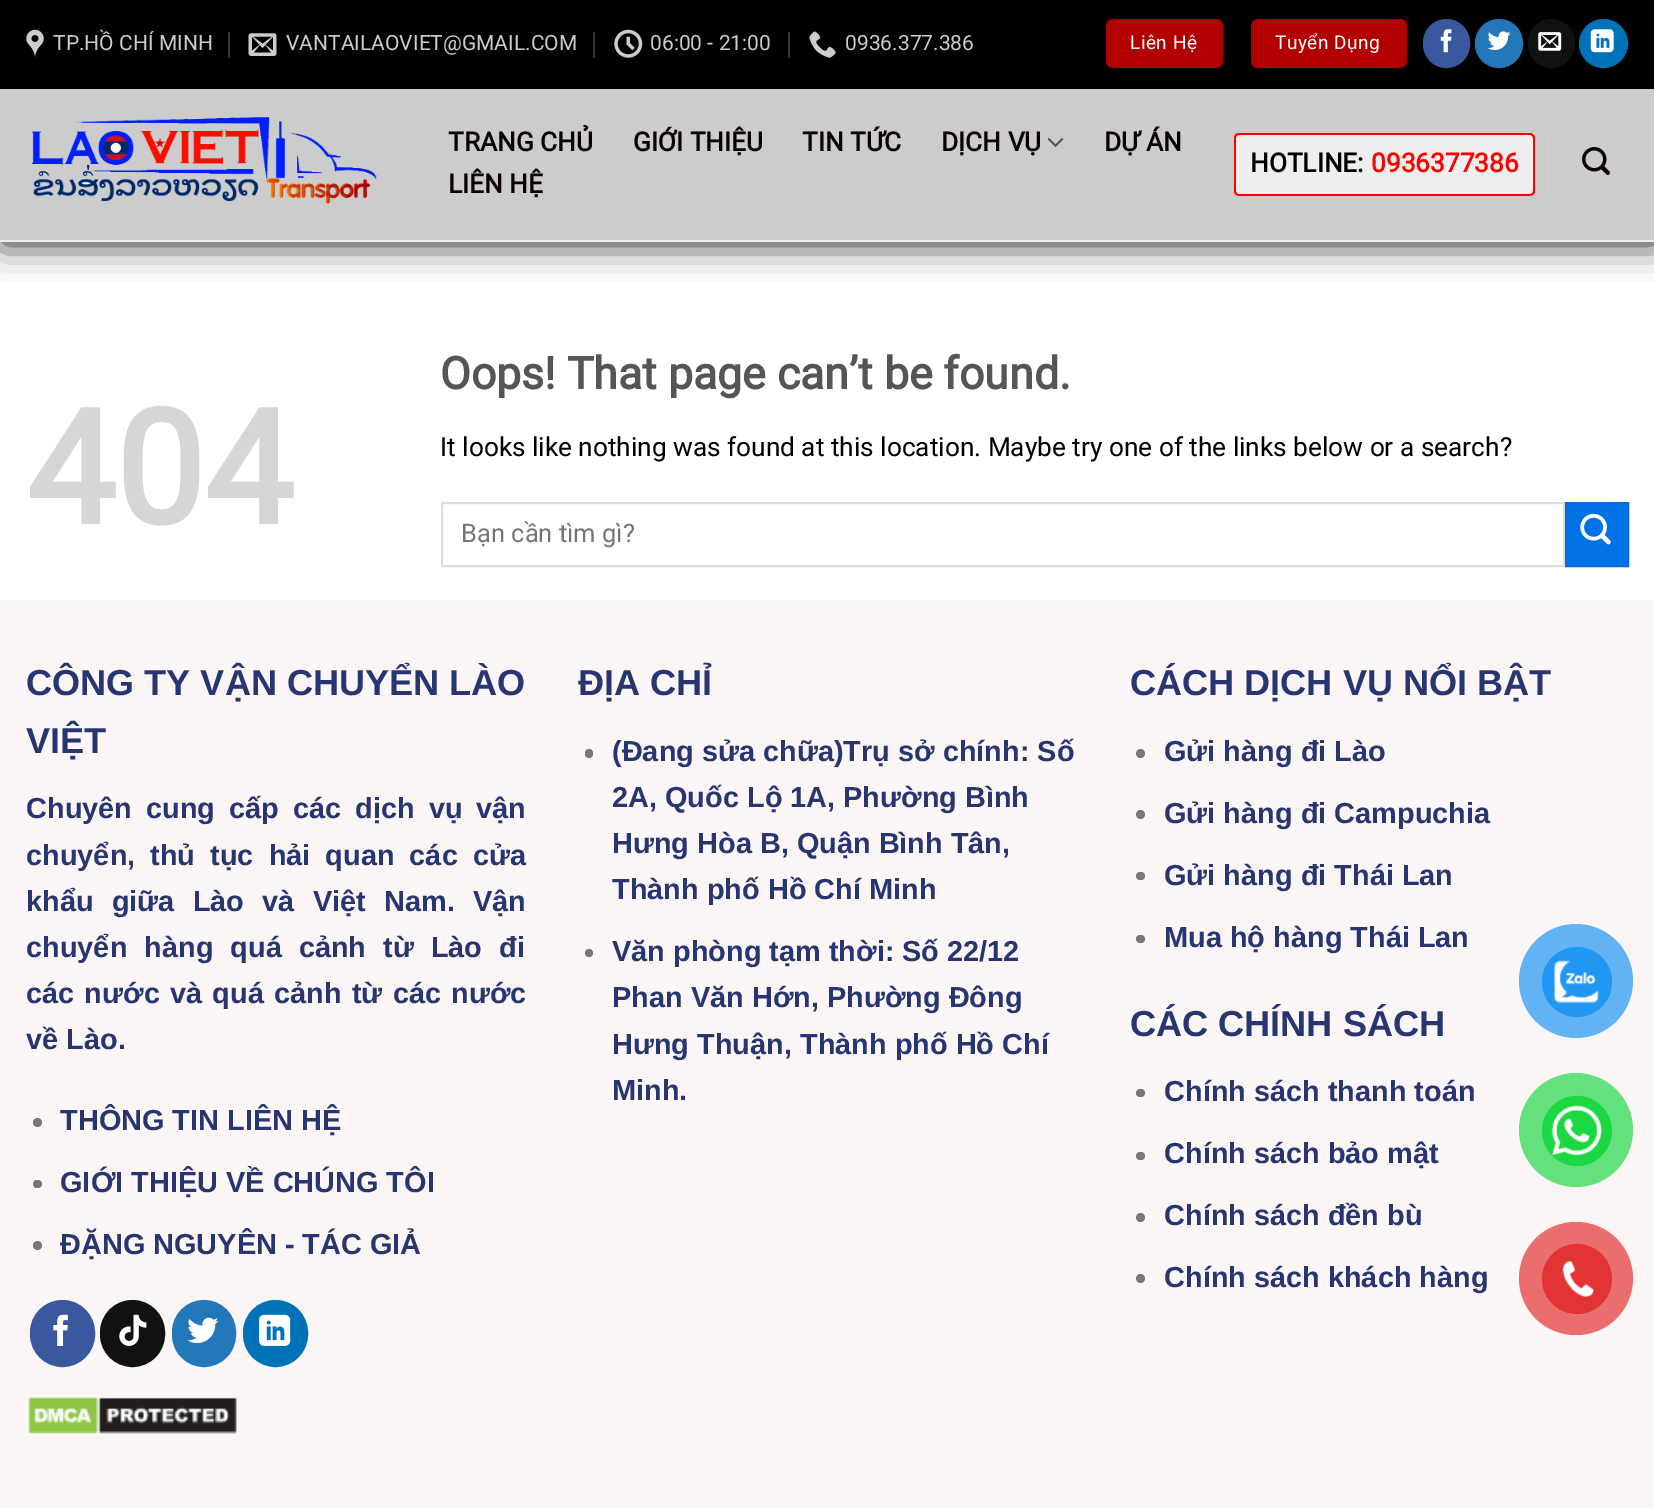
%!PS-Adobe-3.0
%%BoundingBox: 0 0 1654 1508
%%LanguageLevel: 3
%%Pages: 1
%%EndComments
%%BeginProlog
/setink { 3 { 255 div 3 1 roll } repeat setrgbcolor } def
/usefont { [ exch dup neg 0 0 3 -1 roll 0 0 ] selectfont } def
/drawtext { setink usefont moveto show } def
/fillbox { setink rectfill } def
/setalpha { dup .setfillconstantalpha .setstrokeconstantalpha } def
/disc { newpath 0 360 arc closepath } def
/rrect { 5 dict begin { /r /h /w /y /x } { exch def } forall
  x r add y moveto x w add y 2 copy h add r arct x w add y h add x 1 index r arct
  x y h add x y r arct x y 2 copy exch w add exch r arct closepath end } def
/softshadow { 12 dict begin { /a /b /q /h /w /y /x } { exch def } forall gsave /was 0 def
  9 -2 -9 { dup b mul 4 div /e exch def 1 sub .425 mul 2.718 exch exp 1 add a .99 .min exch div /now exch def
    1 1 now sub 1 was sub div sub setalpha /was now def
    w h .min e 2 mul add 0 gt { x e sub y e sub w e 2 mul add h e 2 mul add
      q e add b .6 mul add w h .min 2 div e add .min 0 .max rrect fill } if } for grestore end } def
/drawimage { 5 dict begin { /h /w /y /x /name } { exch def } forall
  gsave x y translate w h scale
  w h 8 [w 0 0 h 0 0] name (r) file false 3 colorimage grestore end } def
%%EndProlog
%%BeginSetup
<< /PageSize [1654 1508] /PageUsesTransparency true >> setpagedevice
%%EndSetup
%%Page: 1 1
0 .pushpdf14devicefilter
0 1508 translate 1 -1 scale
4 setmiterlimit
0 0 1654 1508 255 255 255 fillbox
0 0 0 setink
2 2 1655 241 0 17.5 0.9 softshadow
0 240 1654 2 238 238 238 fillbox
0 0 1654 89 0 0 0 fillbox
(assets/img1.rgb) 26 29 18 29 drawimage
(TP.HỒ CHÍ MINH) 53 50 /Roboto-Regular 21 204 204 204 drawtext
228 32 2 26 51 51 51 fillbox
(assets/img2.rgb) 248 33 29 23 drawimage
(VANTAILAOVIET@GMAIL.COM) 286 50 /Roboto-Regular 21 204 204 204 drawtext
593 32 2 26 51 51 51 fillbox
(assets/img3.rgb) 614 29 29 29 drawimage
(06:00 - 21:00) 650 50 /Roboto-Regular 21 204 204 204 drawtext
788 32 2 26 51 51 51 fillbox
(assets/img4.rgb) 809 31 27 27 drawimage
(0936.377.386) 845 50 /Roboto-Regular 21 204 204 204 drawtext
178 0 0 setink
1106 19 117 49 7 rrect fill
0.05 setalpha
0 0 0 setink
2 setlinewidth
1107 20 115 47 rectstroke
/Roboto-Regular 19 usefont
1 setalpha
255 255 255 setink
1130 49 moveto 0.5 0 (Liên Hệ) ashow
178 0 0 setink
1251 19 156 49 7 rrect fill
0.05 setalpha
0 0 0 setink
1252 20 154 47 rectstroke
1 setalpha
255 255 255 setink
1275 49 moveto 0.5 0 (Tuyển Dụng) ashow
58 88 157 setink
1424 20 45 47 22.5 rrect gsave fill grestore
stroke
(assets/img5.rgb) 1440 29 12 24 drawimage
36 120 186 setink
1476 20 46 47 23 rrect gsave fill grestore
stroke
(assets/img6.rgb) 1487 31 24 19 drawimage
17 17 17 setink
1529 20 45 47 22.5 rrect gsave fill grestore
stroke
(assets/img7.rgb) 1538 32 24 19 drawimage
0 114 183 setink
1603.5 43.5 23.5 disc gsave fill grestore
stroke
(assets/img8.rgb) 1590 29 24 24 drawimage
0 89 1654 151 204 204 204 fillbox
(assets/img9.rgb) 31 117 346 87 drawimage
(TRANG CHỦ) 448 151 /Roboto-Bold 26.25 10 0 0 drawtext
(GIỚI THIỆU) 633 151 /Roboto-Bold 26.25 10 0 0 drawtext
(TIN TỨC) 802 151 /Roboto-Bold 26.25 10 0 0 drawtext
(DỊCH VỤ) 941 151 /Roboto-Bold 26.25 10 0 0 drawtext
(assets/img10.rgb) 1047 138 17 9 drawimage
(DỰ ÁN) 1104 151 /Roboto-Bold 26.25 10 0 0 drawtext
(LIÊN HỆ) 448 193 /Roboto-Bold 26.25 10 0 0 drawtext
238 238 238 setink
1239 133 moveto 1370 133 lineto 1370 196 lineto 1239 196 lineto 1236 196 1234 194 1234 191 curveto 1234 138 lineto 1234 135 1236 133 1239 133 curveto closepath fill
255 0 0 setink
1239 133 moveto 1370 133 lineto 1370 196 lineto 1239 196 lineto 1236 196 1234 194 1234 191 curveto 1234 138 lineto 1234 135 1236 133 1239 133 curveto closepath 1239 135 moveto 1370 135 lineto 1370 194 lineto 1239 194 lineto 1237 194 1236 193 1236 191 curveto 1236 138 lineto 1236 136 1237 135 1239 135 curveto closepath eofill
(HOTLINE:) 1250 172 /Roboto-Bold 26.25 0 0 0 drawtext
238 238 238 setink
1370 133 moveto 1530 133 lineto 1533 133 1535 135 1535 138 curveto 1535 191 lineto 1535 194 1533 196 1530 196 curveto 1370 196 lineto closepath fill
255 0 0 setink
1370 133 moveto 1530 133 lineto 1532 133 1535 135 1535 138 curveto 1535 191 lineto 1535 194 1532 196 1530 196 curveto 1370 196 lineto closepath 1370 135 moveto 1530 135 lineto 1531 135 1533 136 1533 138 curveto 1533 191 lineto 1533 193 1531 194 1530 194 curveto 1370 194 lineto closepath eofill
(0936377386) 1371 172 /Roboto-Bold 26.25 255 0 0 drawtext
1547 138 2 53 209 209 209 fillbox
(assets/img11.rgb) 1582 147 28 28 drawimage
(404) 26 524 /Roboto-Bold 158 214 214 214 drawtext
(Oops! That page can’t be found.) 440 389 /Roboto-Bold 44.6 85 85 85 drawtext
(It looks like nothing was found at this location. Maybe try one of the links below or a search?) 440 456 /Roboto-Regular 26.25 0 0 0 drawtext
221 221 221 setink
442 503 1122 63 rectstroke
(Bạn cần tìm gì?) 461 542 /Roboto-Regular 25.5 117 117 117 drawtext
0 114 229 setink
1566 503 moveto 1628 503 lineto 1628 566 lineto 1566 566 lineto closepath gsave fill grestore
0 108 218 setink
stroke
(assets/img12.rgb) 1580 513 31 32 drawimage
0 600 1654 908 251 245 246 fillbox
(CÔNG TY VẬN CHUYỂN LÀO) 26 695 /LiberationSans-Bold 36.1 39 53 112 drawtext
(VIỆT) 26 753 /LiberationSans-Bold 36.1 39 53 112 drawtext
/LiberationSans-Bold 28.9 usefont
26 818 moveto 6 0 32 (Chuyên cung cấp các dịch vụ vận) widthshow
26 865 moveto 7 0 32 (chuyển, thủ tục hải quan các cửa) widthshow
26 911 moveto 10.25 0 32 (khẩu giữa Lào và Việt Nam. Vận) widthshow
26 957 moveto 9 0 32 (chuyển hàng quá cảnh từ Lào đi) widthshow
26 1003 moveto 2.25 0 32 (các nước và quá cảnh từ các nước) widthshow
(về Lào.) 26 1049 /LiberationSans-Bold 28.9 39 53 112 drawtext
119 119 119 setink
37.5 1122.5 4.5 disc fill
(THÔNG TIN LIÊN HỆ) 60 1130 /LiberationSans-Bold 28.9 39 53 112 drawtext
119 119 119 setink
33 1180 9 8 4 rrect fill
(GIỚI THIỆU VỀ CHÚNG TÔI) 60 1192 /LiberationSans-Bold 28.9 39 53 112 drawtext
119 119 119 setink
37.5 1245.5 4.5 disc fill
(ĐẶNG NGUYÊN - TÁC GIẢ) 60 1254 /LiberationSans-Bold 28.9 39 53 112 drawtext
58 88 157 setink
31 1301 63 65 31.5 rrect gsave fill grestore
stroke
(assets/img13.rgb) 53 1314 15 32 drawimage
17 17 17 setink
101 1301 63 65 31.5 rrect gsave fill grestore
stroke
(assets/img14.rgb) 119 1314 28 32 drawimage
36 120 186 setink
173 1301 62 65 31 rrect gsave fill grestore
stroke
(assets/img15.rgb) 187 1317 32 26 drawimage
0 114 183 setink
244 1301 63 65 31.5 rrect gsave fill grestore
stroke
(assets/img16.rgb) 259 1314 32 32 drawimage
(assets/img17.rgb) 26 1395 211 40 drawimage
(ĐỊA CHỈ) 578 695 /LiberationSans-Bold 36.1 39 53 112 drawtext
119 119 119 setink
585 749 8 9 4 rrect fill
(\(Đang sửa chữa\)Trụ sở chính: Số) 612 761 /LiberationSans-Bold 28.9 39 53 112 drawtext
(2A, Quốc Lộ 1A, Phường Bình) 612 807 /LiberationSans-Bold 28.9 39 53 112 drawtext
(Hưng Hòa B, Quận Bình Tân,) 612 853 /LiberationSans-Bold 28.9 39 53 112 drawtext
(Thành phố Hồ Chí Minh) 612 899 /LiberationSans-Bold 28.9 39 53 112 drawtext
119 119 119 setink
589 953 4 disc fill
(Văn phòng tạm thời: Số 22/12) 612 961 /LiberationSans-Bold 28.9 39 53 112 drawtext
(Phan Văn Hớn, Phường Đông) 612 1007 /LiberationSans-Bold 28.9 39 53 112 drawtext
(Hưng Thuận, Thành phố Hồ Chí) 612 1054 /LiberationSans-Bold 28.9 39 53 112 drawtext
(Minh.) 612 1100 /LiberationSans-Bold 28.9 39 53 112 drawtext
(CÁCH DỊCH VỤ NỔI BẬT) 1130 695 /LiberationSans-Bold 36.1 39 53 112 drawtext
119 119 119 setink
1140.5 753.5 4.5 disc fill
(Gửi hàng đi Lào) 1164 761 /LiberationSans-Bold 28.9 39 53 112 drawtext
119 119 119 setink
1140.5 814.5 4.5 disc fill
(Gửi hàng đi Campuchia) 1164 823 /LiberationSans-Bold 28.9 39 53 112 drawtext
119 119 119 setink
1136 872 9 8 4 rrect fill
(Gửi hàng đi Thái Lan) 1164 885 /LiberationSans-Bold 28.9 39 53 112 drawtext
119 119 119 setink
1136 935 9 8 4 rrect fill
(Mua hộ hàng Thái Lan) 1164 947 /LiberationSans-Bold 28.9 39 53 112 drawtext
(CÁC CHÍNH SÁCH) 1130 1036 /LiberationSans-Bold 36.1 39 53 112 drawtext
119 119 119 setink
1136 1089 9 8 4 rrect fill
(Chính sách thanh toán) 1164 1101 /LiberationSans-Bold 28.9 39 53 112 drawtext
119 119 119 setink
1136 1152 9 8 4 rrect fill
(Chính sách bảo mật) 1164 1163 /LiberationSans-Bold 28.9 39 53 112 drawtext
119 119 119 setink
1140.5 1217.5 4.5 disc fill
(Chính sách đền bù) 1164 1225 /LiberationSans-Bold 28.9 39 53 112 drawtext
119 119 119 setink
1140.5 1278.5 4.5 disc fill
(Chính sách khách hàng) 1164 1287 /LiberationSans-Bold 28.9 39 53 112 drawtext
98 179 244 setink
1576 981 57 disc fill
33 150 243 setink
1577 982 35 disc fill
(assets/img18.rgb) 1554 960 45 44 drawimage
100 225 124 setink
1576 1130 57 disc fill
28 215 65 setink
1577 1131 35 disc fill
(assets/img19.rgb) 1541 1095 71 62 drawimage
234 110 110 setink
1519 1222 114 113 56.5 rrect fill
226 52 52 setink
1577 1279 35 disc fill
(assets/img20.rgb) 1562 1260 32 37 drawimage
.poppdf14devicefilter showpage
%%EOF
